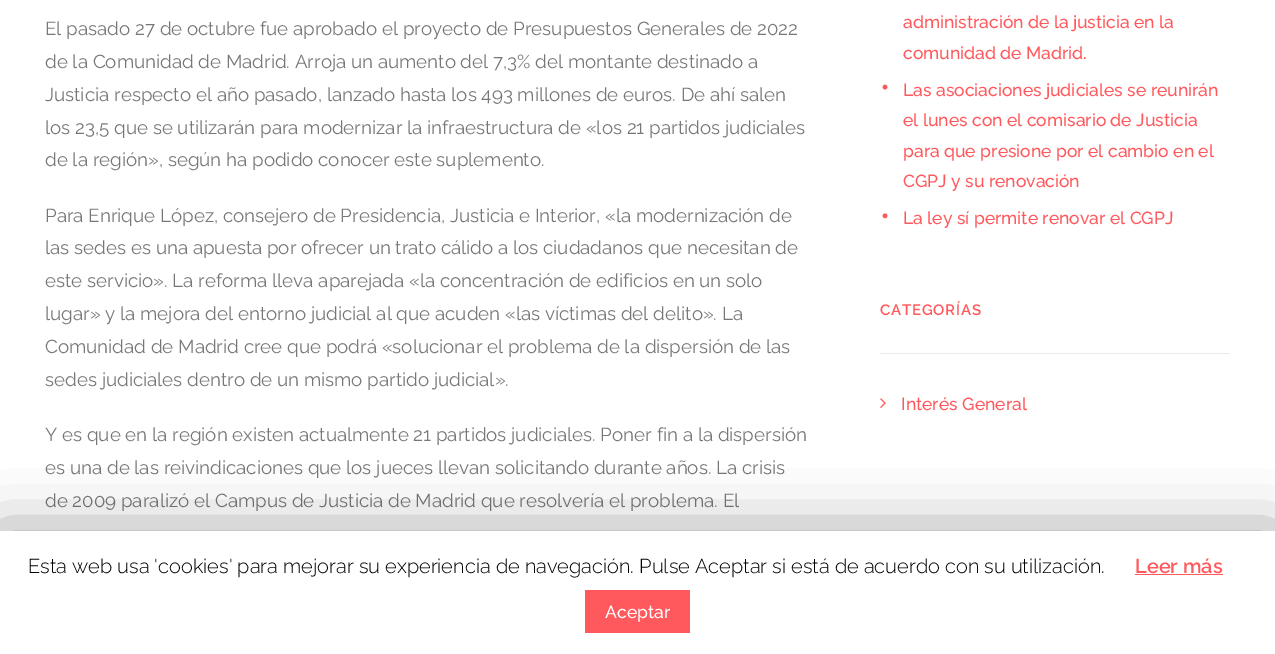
%!PS-Adobe-3.0
%%BoundingBox: 0 0 1275 654
%%LanguageLevel: 3
%%Pages: 1
%%EndComments
%%BeginProlog
/setink { 3 { 255 div 3 1 roll } repeat setrgbcolor } def
/usefont { [ exch dup neg 0 0 3 -1 roll 0 0 ] selectfont } def
/drawtext { setink usefont moveto show } def
/fillbox { setink rectfill } def
/setalpha { dup .setfillconstantalpha .setstrokeconstantalpha } def
/rrect { 5 dict begin { /r /h /w /y /x } { exch def } forall
  x r add y moveto x w add y 2 copy h add r arct x w add y h add x 1 index r arct
  x y h add x y r arct x y 2 copy exch w add exch r arct closepath end } def
/softshadow { 12 dict begin { /a /b /q /h /w /y /x } { exch def } forall gsave /was 0 def
  9 -2 -9 { dup b mul 4 div /e exch def 1 sub .425 mul 2.718 exch exp 1 add a .99 .min exch div /now exch def
    1 1 now sub 1 was sub div sub setalpha /was now def
    w h .min e 2 mul add 0 gt { x e sub y e sub w e 2 mul add h e 2 mul add
      q e add b .6 mul add w h .min 2 div e add .min 0 .max rrect fill } if } for grestore end } def
/drawimage { 5 dict begin { /h /w /y /x /name } { exch def } forall
  gsave x y translate w h scale
  w h 8 [w 0 0 h 0 0] name (r) file false 3 colorimage grestore end } def
%%EndProlog
%%BeginSetup
<< /PageSize [1275 654] /PageUsesTransparency true >> setpagedevice
%%EndSetup
%%Page: 1 1
0 .pushpdf14devicefilter
0 654 translate 1 -1 scale
4 setmiterlimit
0 0 1275 654 255 255 255 fillbox
(El pasado 27 de octubre fue aprobado el proyecto de Presupuestos Generales de 2022) 45 35 /Raleway-Regular 18.75 119 119 119 drawtext
(de la Comunidad de Madrid. Arroja un aumento del 7,3% del montante destinado a) 45 68 /Raleway-Regular 18.75 119 119 119 drawtext
(Justicia respecto el año pasado, lanzado hasta los 493 millones de euros. De ahí salen) 45 101 /Raleway-Regular 18.75 119 119 119 drawtext
(los 23,5 que se utilizarán para modernizar la infraestructura de «los 21 partidos judiciales) 45 134 /Raleway-Regular 18.75 119 119 119 drawtext
(de la región», según ha podido conocer este suplemento.) 45 166 /Raleway-Regular 18.75 119 119 119 drawtext
(Para Enrique López, consejero de Presidencia, Justicia e Interior, «la modernización de) 45 222 /Raleway-Regular 18.75 119 119 119 drawtext
(las sedes es una apuesta por ofrecer un trato cálido a los ciudadanos que necesitan de) 45 254 /Raleway-Regular 18.75 119 119 119 drawtext
(este servicio». La reforma lleva aparejada «la concentración de edificios en un solo) 45 287 /Raleway-Regular 18.75 119 119 119 drawtext
(lugar» y la mejora del entorno judicial al que acuden «las víctimas del delito». La) 45 320 /Raleway-Regular 18.75 119 119 119 drawtext
(Comunidad de Madrid cree que podrá «solucionar el problema de la dispersión de las) 45 353 /Raleway-Regular 18.75 119 119 119 drawtext
(sedes judiciales dentro de un mismo partido judicial».) 45 386 /Raleway-Regular 18.75 119 119 119 drawtext
(Y es que en la región existen actualmente 21 partidos judiciales. Poner fin a la dispersión) 45 441 /Raleway-Regular 18.75 119 119 119 drawtext
(es una de las reivindicaciones que los jueces llevan solicitando durante años. La crisis) 45 474 /Raleway-Regular 18.75 119 119 119 drawtext
(de 2009 paralizó el Campus de Justicia de Madrid que resolvería el problema. El) 45 507 /Raleway-Regular 18.75 119 119 119 drawtext
(administración de la justicia en la) 903 28 /Raleway-Medium 17.5 255 88 93 drawtext
(comunidad de Madrid.) 903 59 /Raleway-Medium 17.5 255 88 93 drawtext
(assets/img1.rgb) 882 84 6 6 drawimage
(Las asociaciones judiciales se reunirán) 903 96 /Raleway-Medium 17.5 255 88 93 drawtext
(el lunes con el comisario de Justicia) 903 126 /Raleway-Medium 17.5 255 88 93 drawtext
(para que presione por el cambio en el) 903 157 /Raleway-Medium 17.5 255 88 93 drawtext
(CGPJ y su renovación) 903 187 /Raleway-Medium 17.5 255 88 93 drawtext
(assets/img2.rgb) 882 213 6 6 drawimage
(La ley sí permite renovar el CGPJ) 903 224 /Raleway-Medium 17.5 255 88 93 drawtext
880 353 350 1 234 234 234 fillbox
/Raleway-SemiBold 15 usefont
255 88 93 setink
880 315 moveto 0.75 0 (CATEGORÍAS) ashow
(assets/img3.rgb) 880 398 6 10 drawimage
(Interés General) 901 410 /Raleway-Medium 17.5 255 88 93 drawtext
0 0 0 setink
0 538 1275 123 0 31 0.5 softshadow
0 531 1275 123 255 255 255 fillbox
(Esta web usa 'cookies' para mejorar su experiencia de navegación. Pulse Aceptar si está de acuerdo con su utilización.) 28 573 /Raleway-Light 20 0 0 0 drawtext
(Leer más) 1135 573 /Raleway-SemiBold 20 255 88 93 drawtext
1135 574 88 1 255 88 93 fillbox
585 590 105 43 255 88 93 fillbox
(Aceptar) 605 618 /Raleway-Medium 17.5 255 255 255 drawtext
.poppdf14devicefilter showpage
%%EOF
